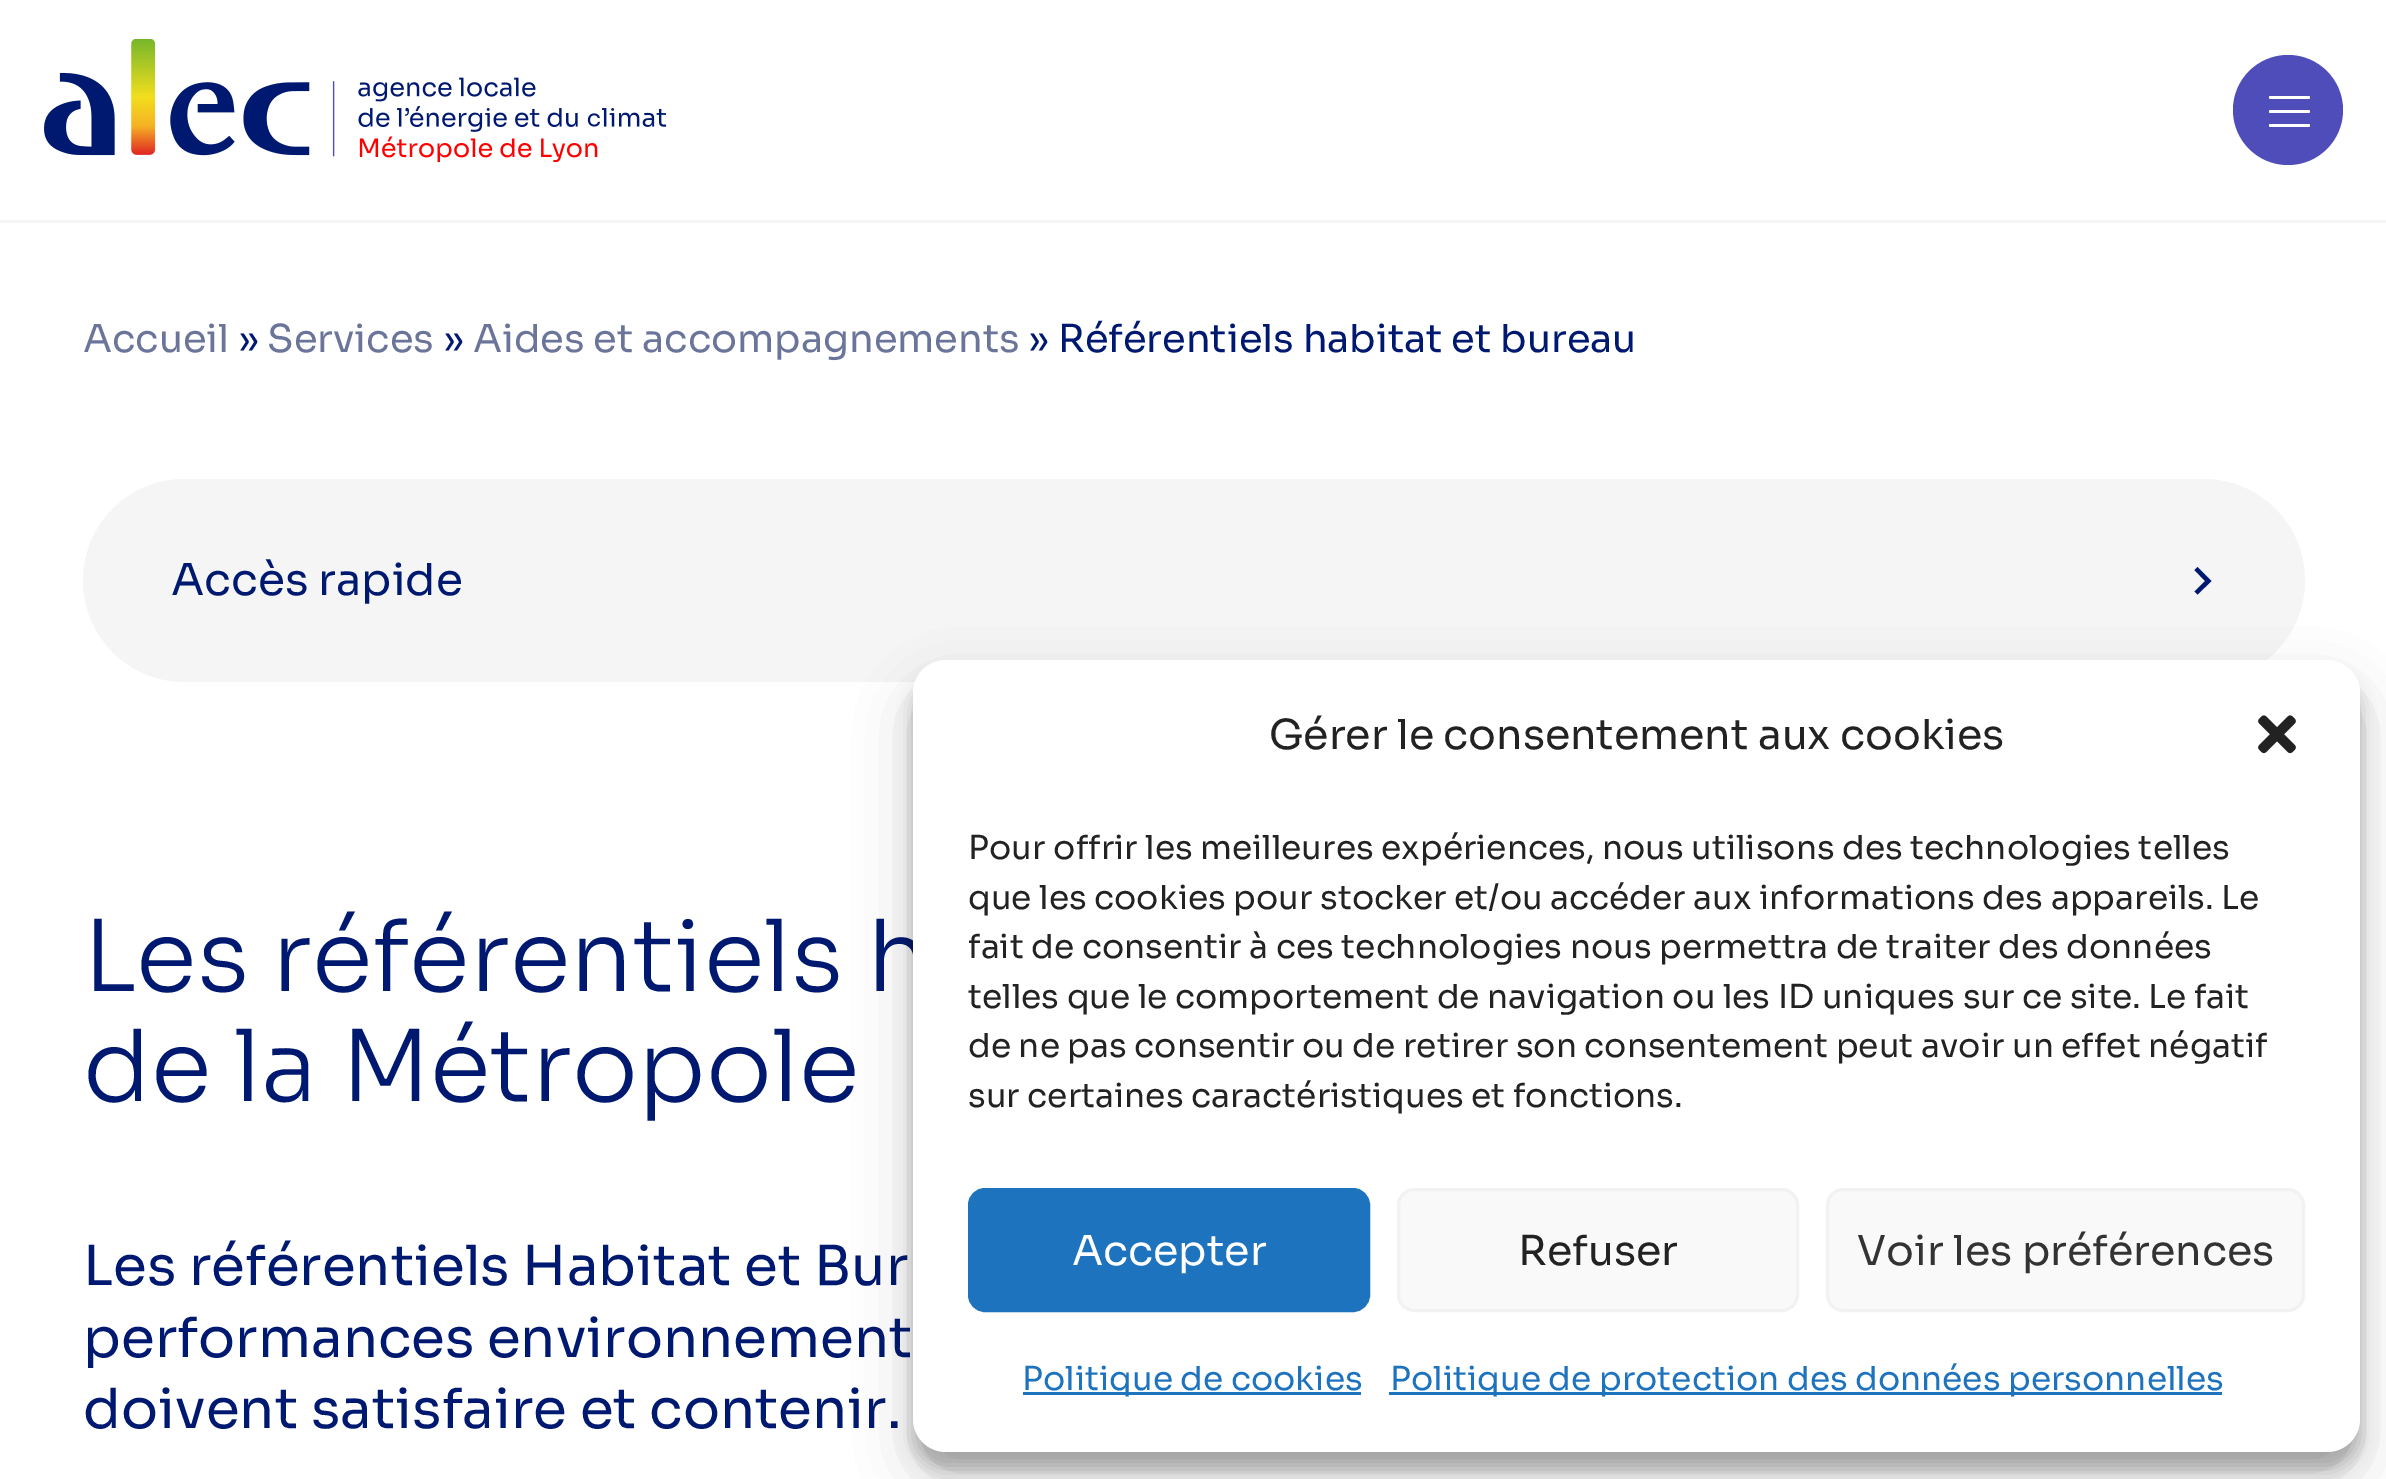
%!PS-Adobe-3.0
%%BoundingBox: 0 0 2386 1479
%%LanguageLevel: 3
%%Pages: 1
%%EndComments
%%BeginProlog
/setink { 3 { 255 div 3 1 roll } repeat setrgbcolor } def
/usefont { [ exch dup neg 0 0 3 -1 roll 0 0 ] selectfont } def
/drawtext { setink usefont moveto show } def
/fillbox { setink rectfill } def
/setalpha { dup .setfillconstantalpha .setstrokeconstantalpha } def
/disc { newpath 0 360 arc closepath } def
/rrect { 5 dict begin { /r /h /w /y /x } { exch def } forall
  x r add y moveto x w add y 2 copy h add r arct x w add y h add x 1 index r arct
  x y h add x y r arct x y 2 copy exch w add exch r arct closepath end } def
/softshadow { 12 dict begin { /a /b /q /h /w /y /x } { exch def } forall gsave /was 0 def
  9 -2 -9 { dup b mul 4 div /e exch def 1 sub .425 mul 2.718 exch exp 1 add a .99 .min exch div /now exch def
    1 1 now sub 1 was sub div sub setalpha /was now def
    w h .min e 2 mul add 0 gt { x e sub y e sub w e 2 mul add h e 2 mul add
      q e add b .6 mul add w h .min 2 div e add .min 0 .max rrect fill } if } for grestore end } def
/drawimage { 5 dict begin { /h /w /y /x /name } { exch def } forall
  gsave x y translate w h scale
  w h 8 [w 0 0 h 0 0] name (r) file false 3 colorimage grestore end } def
%%EndProlog
%%BeginSetup
<< /PageSize [2386 1479] /PageUsesTransparency true >> setpagedevice
%%EndSetup
%%Page: 1 1
0 .pushpdf14devicefilter
0 1479 translate 1 -1 scale
4 setmiterlimit
0 0 2386 1479 255 255 255 fillbox
0 220 2386 3 245 245 245 fillbox
(assets/img1.rgb) 44 39 623 123 drawimage
79 77 186 setink
2288 110 55 disc fill
255 255 255 setink
2269 96 41 3 1.5 rrect fill
2269 110 41 3 1.5 rrect fill
2269 124 41 3 1.5 rrect fill
(Accueil) 83 352 /Sora-Regular 38.5 107 117 154 drawtext
(») 238 352 /Sora-Regular 38.5 0 25 112 drawtext
(Services) 267 352 /Sora-Regular 38.5 107 117 154 drawtext
(») 443 352 /Sora-Regular 38.5 0 25 112 drawtext
(Aides et accompagnements) 473 352 /Sora-Regular 38.5 107 117 154 drawtext
(» Référentiels habitat et bureau) 1028 352 /Sora-Regular 38.5 0 25 112 drawtext
245 245 245 setink
83 479 2222 203 101.5 rrect fill
(Accès rapide) 171 595 /Sora-Regular 44 0 25 112 drawtext
2194.5 570 moveto 2205 581 lineto 2194.5 591.5 lineto 2197.5 594.5 lineto 2211.5 581 lineto 2197.5 567 lineto closepath eofill
(Les référentiels h) 83 991 /Sora-Light 99 0 25 112 drawtext
(de la Métropole) 83 1101 /Sora-Light 99 0 25 112 drawtext
(Les référentiels Habitat et Bur) 83 1285 /Sora-Regular 55 0 25 112 drawtext
(performances environnement) 83 1357 /Sora-Regular 55 0 25 112 drawtext
(doivent satisfaire et contenir.) 83 1428 /Sora-Regular 55 0 25 112 drawtext
0 0 0 setink
913 677 1447 792 33 8 0.23 softshadow
913 688 1447 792 33 27.5 0.19 softshadow
255 255 255 setink
913 660 1447 792 33 rrect fill
(Gérer le consentement aux cookies) 1269 749 /Sora-Regular 41.25 34 34 34 drawtext
(assets/img2.rgb) 2258 715 38 39 drawimage
(Pour offrir les meilleures expériences, nous utilisons des technologies telles) 968 859 /Sora-Regular 33 34 34 34 drawtext
(que les cookies pour stocker et/ou accéder aux informations des appareils. Le) 968 909 /Sora-Regular 33 34 34 34 drawtext
(fait de consentir à ces technologies nous permettra de traiter des données) 968 958 /Sora-Regular 33 34 34 34 drawtext
(telles que le comportement de navigation ou les ID uniques sur ce site. Le fait) 968 1008 /Sora-Regular 33 34 34 34 drawtext
(de ne pas consentir ou de retirer son consentement peut avoir un effet négatif) 968 1057 /Sora-Regular 33 34 34 34 drawtext
(sur certaines caractéristiques et fonctions.) 968 1107 /Sora-Regular 33 34 34 34 drawtext
30 115 190 setink
969.5 1189.5 399 121 15.5 rrect gsave fill grestore
3 setlinewidth
stroke
(Accepter) 1072 1265 /Sora-Regular 41.25 255 255 255 drawtext
249 249 249 setink
1398.5 1189.5 399 121 15.5 rrect gsave fill grestore
242 242 242 setink
stroke
(Refuser) 1518 1265 /Sora-Regular 41.25 34 34 34 drawtext
249 249 249 setink
1827.5 1189.5 476 121 15.5 rrect gsave fill grestore
242 242 242 setink
stroke
(Voir les préférences) 1857 1265 /Sora-Regular 41.25 51 51 51 drawtext
1023 1392 338 3 30 115 190 fillbox
(Politique de cookies) 1022 1390 /Sora-Regular 33 30 115 190 drawtext
1389 1392 833 3 30 115 190 fillbox
(Politique de protection des données personnelles) 1390 1390 /Sora-Regular 33 30 115 190 drawtext
.poppdf14devicefilter showpage
%%EOF
